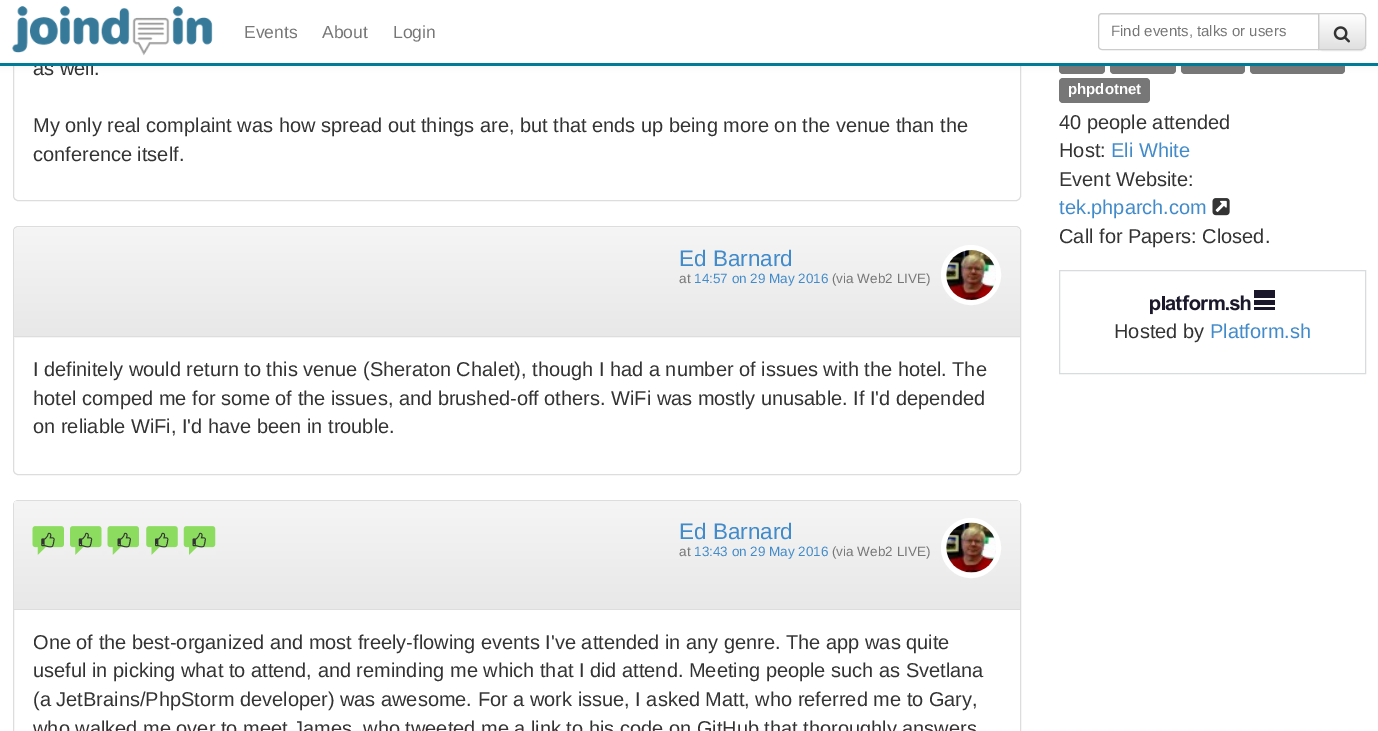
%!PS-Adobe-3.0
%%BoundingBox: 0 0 1378 731
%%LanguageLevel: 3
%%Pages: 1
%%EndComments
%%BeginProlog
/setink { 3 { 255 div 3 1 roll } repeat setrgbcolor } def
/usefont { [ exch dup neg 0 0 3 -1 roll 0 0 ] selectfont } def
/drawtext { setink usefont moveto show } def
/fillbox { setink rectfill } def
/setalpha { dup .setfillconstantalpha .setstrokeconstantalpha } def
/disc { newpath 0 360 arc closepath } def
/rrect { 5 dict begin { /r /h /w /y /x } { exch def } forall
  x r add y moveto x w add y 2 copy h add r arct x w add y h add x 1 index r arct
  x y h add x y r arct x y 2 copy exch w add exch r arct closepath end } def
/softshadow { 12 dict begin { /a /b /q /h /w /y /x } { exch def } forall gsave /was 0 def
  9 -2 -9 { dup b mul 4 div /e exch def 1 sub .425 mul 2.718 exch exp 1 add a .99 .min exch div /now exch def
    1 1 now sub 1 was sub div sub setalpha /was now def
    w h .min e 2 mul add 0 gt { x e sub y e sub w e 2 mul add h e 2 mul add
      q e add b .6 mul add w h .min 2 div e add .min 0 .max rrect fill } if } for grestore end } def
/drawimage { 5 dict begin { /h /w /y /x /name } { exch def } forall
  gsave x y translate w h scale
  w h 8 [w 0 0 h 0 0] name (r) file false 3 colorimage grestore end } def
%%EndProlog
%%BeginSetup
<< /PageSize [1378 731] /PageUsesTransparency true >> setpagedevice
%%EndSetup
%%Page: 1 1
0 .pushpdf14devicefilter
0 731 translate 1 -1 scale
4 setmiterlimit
0 0 1378 731 255 255 255 fillbox
221 221 221 setink
13.5 -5.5 1007 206 4.5 rrect stroke
119 119 119 setink
1059 49 46 25 4 rrect fill
1110 49 66 25 4 rrect fill
1181 49 64 25 4 rrect fill
1250 49 95 25 4 rrect fill
0 0 0 setink
0 1 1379 65 0 3 0.07 softshadow
(as well.) 33 75 /LiberationSans-Regular 20 51 51 51 drawtext
0 0 1378 63 255 255 255 fillbox
0 63 1378 3 0 123 151 fillbox
(assets/img1.rgb) 12 6 201 50 drawimage
(Events) 244 38 /LiberationSans-Regular 17.5 119 119 119 drawtext
(About) 322 38 /LiberationSans-Regular 17.5 119 119 119 drawtext
(Login) 393 38 /LiberationSans-Regular 17.5 119 119 119 drawtext
0 0 0 setink
1318 14 48 37 5 0.5 0.07 softshadow
gsave
1318 13 moveto 1361 13 lineto 1364 13 1366 15 1366 18 curveto 1366 45 lineto 1366 48 1364 50 1361 50 curveto 1318 50 lineto closepath clip newpath
gsave 1319 14 moveto 1366 14 lineto 1366 49 lineto 1319 49 lineto closepath clip newpath
<< /ShadingType 2 /ColorSpace /DeviceRGB /Coords [1342 14 1342 49] /Extend [true true] /Function << /FunctionType 2 /Domain [0 1] /C0 [1 1 1] /C1 [0.878 0.878 0.878] /N 1 >> >> shfill grestore
grestore
204 204 204 setink
1318.5 13.5 moveto 1361 13.5 lineto 1363.5 13.5 1365.5 15.5 1365.5 18 curveto 1365.5 45 lineto 1365.5 47.5 1363.5 49.5 1361 49.5 curveto 1318.5 49.5 lineto closepath stroke
255 255 255 setink
1102 13 moveto 1319 13 lineto 1319 50 lineto 1102 50 lineto 1100 50 1098 48 1098 46 curveto 1098 17 lineto 1098 15 1100 13 1102 13 curveto closepath fill
236 236 236 setink
1101 15 moveto 1318 15 lineto 1318 14 lineto 1102 14 lineto 1099 14 1099 16 1099 18 curveto 1099 16 1100 15 1101 15 curveto closepath fill
204 204 204 setink
1102 13.5 moveto 1318.5 13.5 lineto 1318.5 49.5 lineto 1102 49.5 lineto 1100 49.5 1098.5 48 1098.5 46 curveto 1098.5 17 lineto 1098.5 15 1100 13.5 1102 13.5 curveto closepath stroke
(Find events, talks or users) 1111 36 /LiberationSans-Regular 15 119 119 119 drawtext
(assets/img2.rgb) 1333 26 17 17 drawimage
(My only real complaint was how spread out things are, but that ends up being more on the venue than the) 33 132 /LiberationSans-Regular 20 51 51 51 drawtext
(conference itself.) 33 161 /LiberationSans-Regular 20 51 51 51 drawtext
221 221 221 setink
13.5 226.5 1007 248 4.5 rrect stroke
245 245 245 setink
18 228 moveto 1016 228 lineto 1018 228 1020 230 1020 232 curveto 1020 338 lineto 14 338 lineto 14 232 lineto 14 230 16 228 18 228 curveto closepath fill
gsave 18 228 moveto 1016 228 lineto 1018 228 1020 230 1020 232 curveto 1020 336 lineto 14 336 lineto 14 232 lineto 14 230 16 228 18 228 curveto closepath clip newpath
<< /ShadingType 2 /ColorSpace /DeviceRGB /Coords [517 227 517 336] /Extend [true true] /Function << /FunctionType 2 /Domain [0 1] /C0 [0.961 0.961 0.961] /C1 [0.91 0.91 0.91] /N 1 >> >> shfill grestore
14 336 1006 1 221 221 221 fillbox
(Ed Barnard) 679 266 /LiberationSans-Regular 22.5 66 139 202 drawtext
(at) 679 283 /LiberationSans-Regular 13.5 119 119 119 drawtext
(14:57 on 29 May 2016) 694 283 /LiberationSans-Regular 13.5 66 139 202 drawtext
(\(via Web2 LIVE\)) 832 283 /LiberationSans-Regular 13.5 119 119 119 drawtext
255 255 255 setink
5 setlinewidth
971 275 27.5 disc stroke
(assets/img3.rgb) 946 250 50 50 drawimage
(I definitely would return to this venue \(Sheraton Chalet\), though I had a number of issues with the hotel. The) 33 376 /LiberationSans-Regular 20 51 51 51 drawtext
(hotel comped me for some of the issues, and brushed-off others. WiFi was mostly unusable. If I'd depended) 33 405 /LiberationSans-Regular 20 51 51 51 drawtext
(on reliable WiFi, I'd have been in trouble.) 33 433 /LiberationSans-Regular 20 51 51 51 drawtext
221 221 221 setink
1 setlinewidth
13.5 500.5 1007 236 4.5 rrect stroke
gsave 18 501 moveto 1016 501 lineto 1018 501 1020 503 1020 505 curveto 1020 609 lineto 14 609 lineto 14 505 lineto 14 503 16 501 18 501 curveto closepath clip newpath
<< /ShadingType 2 /ColorSpace /DeviceRGB /Coords [517 501 517 609] /Extend [true true] /Function << /FunctionType 2 /Domain [0 1] /C0 [0.961 0.961 0.961] /C1 [0.91 0.91 0.91] /N 1 >> >> shfill grestore
14 609 1006 1 221 221 221 fillbox
(assets/img4.rgb) 32 526 32 29 drawimage
(assets/img5.rgb) 41 532 14 16 drawimage
(assets/img6.rgb) 70 526 32 29 drawimage
(assets/img7.rgb) 78 532 15 16 drawimage
(assets/img4.rgb) 107 526 32 29 drawimage
(assets/img8.rgb) 117 532 14 16 drawimage
(assets/img9.rgb) 146 526 32 29 drawimage
(assets/img10.rgb) 155 532 14 16 drawimage
(assets/img11.rgb) 183 526 33 29 drawimage
(assets/img12.rgb) 192 532 14 16 drawimage
(Ed Barnard) 679 539 /LiberationSans-Regular 22.5 66 139 202 drawtext
(at) 679 556 /LiberationSans-Regular 13.5 119 119 119 drawtext
(13:43 on 29 May 2016) 694 556 /LiberationSans-Regular 13.5 66 139 202 drawtext
(\(via Web2 LIVE\)) 832 556 /LiberationSans-Regular 13.5 119 119 119 drawtext
255 255 255 setink
5 setlinewidth
971 548 27.5 disc stroke
(assets/img13.rgb) 946 522 50 51 drawimage
(One of the best-organized and most freely-flowing events I've attended in any genre. The app was quite) 33 649 /LiberationSans-Regular 20 51 51 51 drawtext
(useful in picking what to attend, and reminding me which that I did attend. Meeting people such as Svetlana) 33 677 /LiberationSans-Regular 20 51 51 51 drawtext
(\(a JetBrains/PhpStorm developer\) was awesome. For a work issue, I asked Matt, who referred me to Gary,) 33 706 /LiberationSans-Regular 20 51 51 51 drawtext
(who walked me over to meet James, who tweeted me a link to his code on GitHub that thoroughly answers) 33 735 /LiberationSans-Regular 20 51 51 51 drawtext
119 119 119 setink
1059 78 91 25 4 rrect fill
(phpdotnet) 1068 94 /LiberationSans-Bold 15 255 255 255 drawtext
(40 people attended) 1059 129 /LiberationSans-Regular 20 51 51 51 drawtext
(Host:) 1059 157 /LiberationSans-Regular 20 51 51 51 drawtext
(Eli White) 1111 157 /LiberationSans-Regular 20 66 139 202 drawtext
(Event Website:) 1059 186 /LiberationSans-Regular 20 51 51 51 drawtext
(tek.phparch.com) 1059 214 /LiberationSans-Regular 20 66 139 202 drawtext
(assets/img14.rgb) 1212 198 18 18 drawimage
(Call for Papers: Closed.) 1059 243 /LiberationSans-Regular 20 51 51 51 drawtext
215 220 223 setink
1 setlinewidth
1059.5 270.5 306 103 rectstroke
(assets/img15.rgb) 1150 290 125 25 drawimage
(Hosted by) 1114 338 /LiberationSans-Regular 20 51 51 51 drawtext
(Platform.sh) 1210 338 /LiberationSans-Regular 20 66 139 202 drawtext
.poppdf14devicefilter showpage
%%EOF
